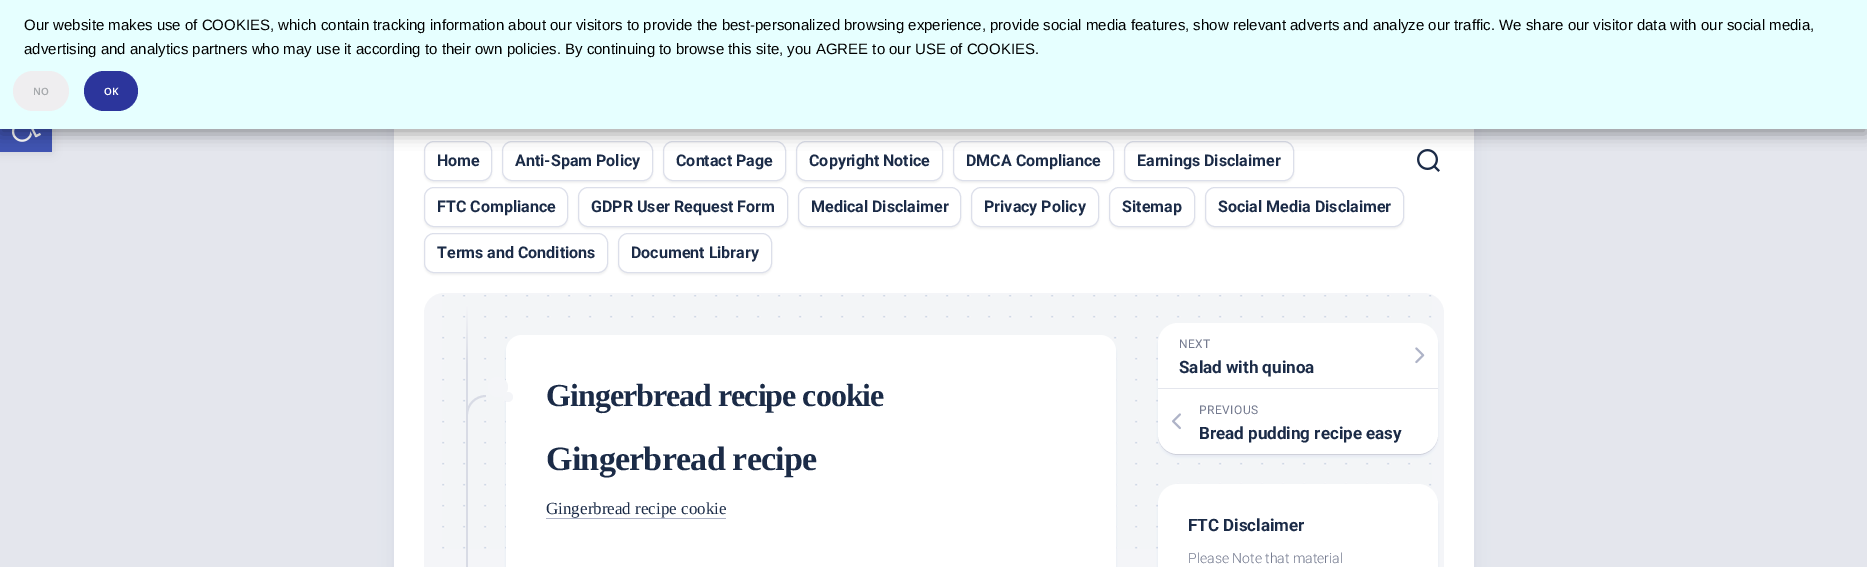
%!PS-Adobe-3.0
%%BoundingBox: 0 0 1867 567
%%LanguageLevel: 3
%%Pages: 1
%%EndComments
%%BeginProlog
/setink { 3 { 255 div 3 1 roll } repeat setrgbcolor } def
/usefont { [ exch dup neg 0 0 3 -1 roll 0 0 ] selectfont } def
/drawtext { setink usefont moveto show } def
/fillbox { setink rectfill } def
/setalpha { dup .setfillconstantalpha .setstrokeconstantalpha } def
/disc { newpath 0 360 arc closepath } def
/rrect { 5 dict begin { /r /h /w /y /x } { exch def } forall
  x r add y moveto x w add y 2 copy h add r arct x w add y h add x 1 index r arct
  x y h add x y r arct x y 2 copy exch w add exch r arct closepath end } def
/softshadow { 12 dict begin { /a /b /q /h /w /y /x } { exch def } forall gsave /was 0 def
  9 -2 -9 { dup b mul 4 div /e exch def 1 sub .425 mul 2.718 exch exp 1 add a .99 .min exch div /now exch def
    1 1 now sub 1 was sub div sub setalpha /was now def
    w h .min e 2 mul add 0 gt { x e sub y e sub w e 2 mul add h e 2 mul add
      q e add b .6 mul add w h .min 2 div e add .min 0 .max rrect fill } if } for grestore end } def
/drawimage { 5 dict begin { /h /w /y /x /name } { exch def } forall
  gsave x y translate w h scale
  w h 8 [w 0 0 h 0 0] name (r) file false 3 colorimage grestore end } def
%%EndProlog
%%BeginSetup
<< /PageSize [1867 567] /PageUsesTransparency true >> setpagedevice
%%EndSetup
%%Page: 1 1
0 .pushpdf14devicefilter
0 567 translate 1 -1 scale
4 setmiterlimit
0 0 1867 567 228 230 237 fillbox
0 0 0 setink
0 100 52 52 0 5 0.1 softshadow
0 129 52 23 64 84 178 fillbox
(assets/img1.rgb) 11 129 30 13 drawimage
214 218 228 setink
394 40 1080 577 20 10 1 softshadow
394 129 1080 438 255 255 255 fillbox
gsave
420 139 moveto 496 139 lineto 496 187 lineto 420 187 lineto closepath 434 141 moveto 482 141 lineto 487.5 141 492 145.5 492 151 curveto 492 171 lineto 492 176.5 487.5 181 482 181 curveto 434 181 lineto 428.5 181 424 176.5 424 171 curveto 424 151 lineto 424 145.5 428.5 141 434 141 curveto closepath eoclip newpath
0 0 0 setink
424 143 68 40 10 1 0.06 softshadow
grestore
220 223 234 setink
424.5 141.5 67 39 9.5 rrect stroke
gsave
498 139 moveto 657 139 lineto 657 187 lineto 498 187 lineto closepath 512 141 moveto 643 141 lineto 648.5 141 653 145.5 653 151 curveto 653 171 lineto 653 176.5 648.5 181 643 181 curveto 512 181 lineto 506.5 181 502 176.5 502 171 curveto 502 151 lineto 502 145.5 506.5 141 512 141 curveto closepath eoclip newpath
0 0 0 setink
502 143 151 40 10 1 0.06 softshadow
grestore
502.5 141.5 150 39 9.5 rrect stroke
gsave
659 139 moveto 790 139 lineto 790 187 lineto 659 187 lineto closepath 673 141 moveto 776 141 lineto 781.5 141 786 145.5 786 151 curveto 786 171 lineto 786 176.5 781.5 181 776 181 curveto 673 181 lineto 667.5 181 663 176.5 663 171 curveto 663 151 lineto 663 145.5 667.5 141 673 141 curveto closepath eoclip newpath
0 0 0 setink
663 143 123 40 10 1 0.06 softshadow
grestore
663.5 141.5 122 39 9.5 rrect stroke
gsave
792 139 moveto 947 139 lineto 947 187 lineto 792 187 lineto closepath 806 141 moveto 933 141 lineto 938.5 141 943 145.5 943 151 curveto 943 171 lineto 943 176.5 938.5 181 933 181 curveto 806 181 lineto 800.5 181 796 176.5 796 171 curveto 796 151 lineto 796 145.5 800.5 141 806 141 curveto closepath eoclip newpath
0 0 0 setink
796 143 147 40 10 1 0.06 softshadow
grestore
796.5 141.5 146 39 9.5 rrect stroke
gsave
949 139 moveto 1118 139 lineto 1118 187 lineto 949 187 lineto closepath 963 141 moveto 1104 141 lineto 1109.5 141 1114 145.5 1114 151 curveto 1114 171 lineto 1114 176.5 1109.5 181 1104 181 curveto 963 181 lineto 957.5 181 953 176.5 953 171 curveto 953 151 lineto 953 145.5 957.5 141 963 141 curveto closepath eoclip newpath
0 0 0 setink
953 143 161 40 10 1 0.06 softshadow
grestore
953.5 141.5 160 39 9.5 rrect stroke
gsave
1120 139 moveto 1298 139 lineto 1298 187 lineto 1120 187 lineto closepath 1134 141 moveto 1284 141 lineto 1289.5 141 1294 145.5 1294 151 curveto 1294 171 lineto 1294 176.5 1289.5 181 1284 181 curveto 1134 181 lineto 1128.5 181 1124 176.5 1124 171 curveto 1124 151 lineto 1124 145.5 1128.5 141 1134 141 curveto closepath eoclip newpath
0 0 0 setink
1124 143 170 40 10 1 0.06 softshadow
grestore
1124.5 141.5 169 39 9.5 rrect stroke
(assets/img2.rgb) 1417 149 23 23 drawimage
0 0 0 setink
0 5 1867 129 0 7.5 0.35 softshadow
0 0 1867 129 230 255 255 fillbox
(Our website makes use of COOKIES, which contain tracking information about our visitors to provide the best-personalized browsing experience, provide social media features, show relevant adverts and analyze our traffic. We share our visitor data with our social media,) 24 30 /LiberationSans-Regular 15 0 0 0 drawtext
(advertising and analytics partners who may use it according to their own policies. By continuing to browse this site, you AGREE to our USE of COOKIES.) 24 54 /LiberationSans-Regular 15 0 0 0 drawtext
239 238 240 setink
13 71 56 40 20 rrect fill
(NO) 33 95 /NotoSans-SemiBold 10 167 170 173 drawtext
44 53 156 setink
84 71 54 40 20 rrect fill
(OK) 104 95 /NotoSans-SemiBold 10 255 255 255 drawtext
(Home) 437 166 /Roboto-Bold 16 27 43 71 drawtext
(Anti-Spam Policy) 515 166 /Roboto-Bold 16 27 43 71 drawtext
(Contact Page) 676 166 /Roboto-Bold 16 27 43 71 drawtext
(Copyright Notice) 809 166 /Roboto-Bold 16 27 43 71 drawtext
(DMCA Compliance) 966 166 /Roboto-Bold 16 27 43 71 drawtext
(Earnings Disclaimer) 1137 166 /Roboto-Bold 16 27 43 71 drawtext
gsave
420 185 moveto 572 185 lineto 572 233 lineto 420 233 lineto closepath 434 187 moveto 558 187 lineto 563.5 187 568 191.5 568 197 curveto 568 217 lineto 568 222.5 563.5 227 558 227 curveto 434 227 lineto 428.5 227 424 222.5 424 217 curveto 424 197 lineto 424 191.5 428.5 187 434 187 curveto closepath eoclip newpath
0 0 0 setink
424 189 144 40 10 1 0.06 softshadow
grestore
220 223 234 setink
424.5 187.5 143 39 9.5 rrect stroke
(FTC Compliance) 437 212 /Roboto-Bold 16 27 43 71 drawtext
gsave
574 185 moveto 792 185 lineto 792 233 lineto 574 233 lineto closepath 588 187 moveto 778 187 lineto 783.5 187 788 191.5 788 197 curveto 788 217 lineto 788 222.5 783.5 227 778 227 curveto 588 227 lineto 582.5 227 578 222.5 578 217 curveto 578 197 lineto 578 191.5 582.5 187 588 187 curveto closepath eoclip newpath
0 0 0 setink
578 189 210 40 10 1 0.06 softshadow
grestore
220 223 234 setink
578.5 187.5 209 39 9.5 rrect stroke
(GDPR User Request Form) 591 212 /Roboto-Bold 16 27 43 71 drawtext
gsave
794 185 moveto 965 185 lineto 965 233 lineto 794 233 lineto closepath 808 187 moveto 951 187 lineto 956.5 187 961 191.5 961 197 curveto 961 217 lineto 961 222.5 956.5 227 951 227 curveto 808 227 lineto 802.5 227 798 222.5 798 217 curveto 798 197 lineto 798 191.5 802.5 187 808 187 curveto closepath eoclip newpath
0 0 0 setink
798 189 163 40 10 1 0.06 softshadow
grestore
220 223 234 setink
798.5 187.5 162 39 9.5 rrect stroke
(Medical Disclaimer) 811 212 /Roboto-Bold 16 27 43 71 drawtext
gsave
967 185 moveto 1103 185 lineto 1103 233 lineto 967 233 lineto closepath 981 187 moveto 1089 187 lineto 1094.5 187 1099 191.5 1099 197 curveto 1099 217 lineto 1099 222.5 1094.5 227 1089 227 curveto 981 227 lineto 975.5 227 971 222.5 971 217 curveto 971 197 lineto 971 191.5 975.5 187 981 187 curveto closepath eoclip newpath
0 0 0 setink
971 189 128 40 10 1 0.06 softshadow
grestore
220 223 234 setink
971.5 187.5 127 39 9.5 rrect stroke
(Privacy Policy) 984 212 /Roboto-Bold 16 27 43 71 drawtext
gsave
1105 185 moveto 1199 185 lineto 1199 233 lineto 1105 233 lineto closepath 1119 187 moveto 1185 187 lineto 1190.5 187 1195 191.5 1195 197 curveto 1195 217 lineto 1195 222.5 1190.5 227 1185 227 curveto 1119 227 lineto 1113.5 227 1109 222.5 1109 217 curveto 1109 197 lineto 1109 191.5 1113.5 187 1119 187 curveto closepath eoclip newpath
0 0 0 setink
1109 189 86 40 10 1 0.06 softshadow
grestore
220 223 234 setink
1109.5 187.5 85 39 9.5 rrect stroke
(Sitemap) 1122 212 /Roboto-Bold 16 27 43 71 drawtext
gsave
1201 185 moveto 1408 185 lineto 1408 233 lineto 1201 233 lineto closepath 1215 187 moveto 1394 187 lineto 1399.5 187 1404 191.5 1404 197 curveto 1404 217 lineto 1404 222.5 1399.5 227 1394 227 curveto 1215 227 lineto 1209.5 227 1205 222.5 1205 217 curveto 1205 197 lineto 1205 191.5 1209.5 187 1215 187 curveto closepath eoclip newpath
0 0 0 setink
1205 189 199 40 10 1 0.06 softshadow
grestore
220 223 234 setink
1205.5 187.5 198 39 9.5 rrect stroke
(Social Media Disclaimer) 1218 212 /Roboto-Bold 16 27 43 71 drawtext
gsave
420 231 moveto 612 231 lineto 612 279 lineto 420 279 lineto closepath 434 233 moveto 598 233 lineto 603.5 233 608 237.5 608 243 curveto 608 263 lineto 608 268.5 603.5 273 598 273 curveto 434 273 lineto 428.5 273 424 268.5 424 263 curveto 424 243 lineto 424 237.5 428.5 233 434 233 curveto closepath eoclip newpath
0 0 0 setink
424 235 184 40 10 1 0.06 softshadow
grestore
220 223 234 setink
424.5 233.5 183 39 9.5 rrect stroke
(Terms and Conditions) 437 258 /Roboto-Bold 16 27 43 71 drawtext
gsave
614 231 moveto 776 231 lineto 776 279 lineto 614 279 lineto closepath 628 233 moveto 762 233 lineto 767.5 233 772 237.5 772 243 curveto 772 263 lineto 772 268.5 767.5 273 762 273 curveto 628 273 lineto 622.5 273 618 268.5 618 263 curveto 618 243 lineto 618 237.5 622.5 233 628 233 curveto closepath eoclip newpath
0 0 0 setink
618 235 154 40 10 1 0.06 softshadow
grestore
220 223 234 setink
618.5 233.5 153 39 9.5 rrect stroke
(Document Library) 631 258 /Roboto-Bold 16 27 43 71 drawtext
244 245 248 setink
424 293 1020 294 20 rrect fill
(assets/img3.rgb) 442 295 990 254 drawimage
466 365 2 202 216 219 229 fillbox
gsave 466 305 moveto 468 305 lineto 468 365 lineto 466 365 lineto closepath clip newpath
<< /ShadingType 2 /ColorSpace /DeviceRGB /Coords [467 365 467 305] /Extend [true true] /Function << /FunctionType 2 /Domain [0 1] /C0 [0.847 0.859 0.898] /C1 [0.957 0.961 0.973] /N 1 >> >> shfill grestore
486 395 moveto 486 415 lineto 466 415 lineto 466 404 475 395 486 395 curveto closepath 486 397 moveto 486 415 lineto 468 415 lineto 468 405 476 397 486 397 curveto closepath eofill
193 203 230 setink
506 338 610 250 16 1.5 0.3 softshadow
255 255 255 setink
506 335 610 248 16 rrect fill
244 245 248 setink
498 387 10 disc fill
508 397 5 disc fill
/LiberationSerif-Bold 32 usefont
27 43 71 setink
546 406 moveto -1 0 (Gingerbread recipe cookie) ashow
/LiberationSerif-Bold 34 usefont
546 470 moveto -0.75 0 (Gingerbread recipe) ashow
(Gingerbread recipe cookie) 546 514 /LiberationSerif-Regular 17 27 43 71 drawtext
546 518 180 1 174 179 199 fillbox
193 203 230 setink
1158 326 280 131 20 1.5 0.3 softshadow
0.1 setalpha
0 0 0 setink
1158 434 moveto 1158 435 lineto 1158 446 1167 455 1178 455 curveto 1418 455 lineto 1429 455 1438 446 1438 435 curveto 1438 434 lineto 1438 445 1429 454 1418 454 curveto 1178 454 lineto 1167 454 1158 445 1158 434 curveto closepath fill
1 setalpha
255 255 255 setink
1158 323 280 131 20 rrect fill
1158 388 280 1 228 230 237 fillbox
/Roboto-Regular 12 usefont
115 121 142 setink
1179 348 moveto 0.5 0 (NEXT) ashow
(assets/img4.rgb) 1415 347 10 17 drawimage
(Salad with quinoa) 1179 373 /Roboto-Bold 17 27 43 71 drawtext
/Roboto-Regular 12 usefont
115 121 142 setink
1199 414 moveto 0.5 0 (PREVIOUS) ashow
(assets/img5.rgb) 1172 413 9 17 drawimage
(Bread pudding recipe easy) 1199 439 /Roboto-Bold 17 27 43 71 drawtext
193 203 230 setink
1158 487 280 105 20 1.5 0.3 softshadow
255 255 255 setink
1158 484 280 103 20 rrect fill
(FTC Disclaimer) 1188 531 /Roboto-Bold 17 27 43 71 drawtext
(Please Note that material) 1188 563 /Roboto-Light 14 115 121 142 drawtext
.poppdf14devicefilter showpage
%%EOF
